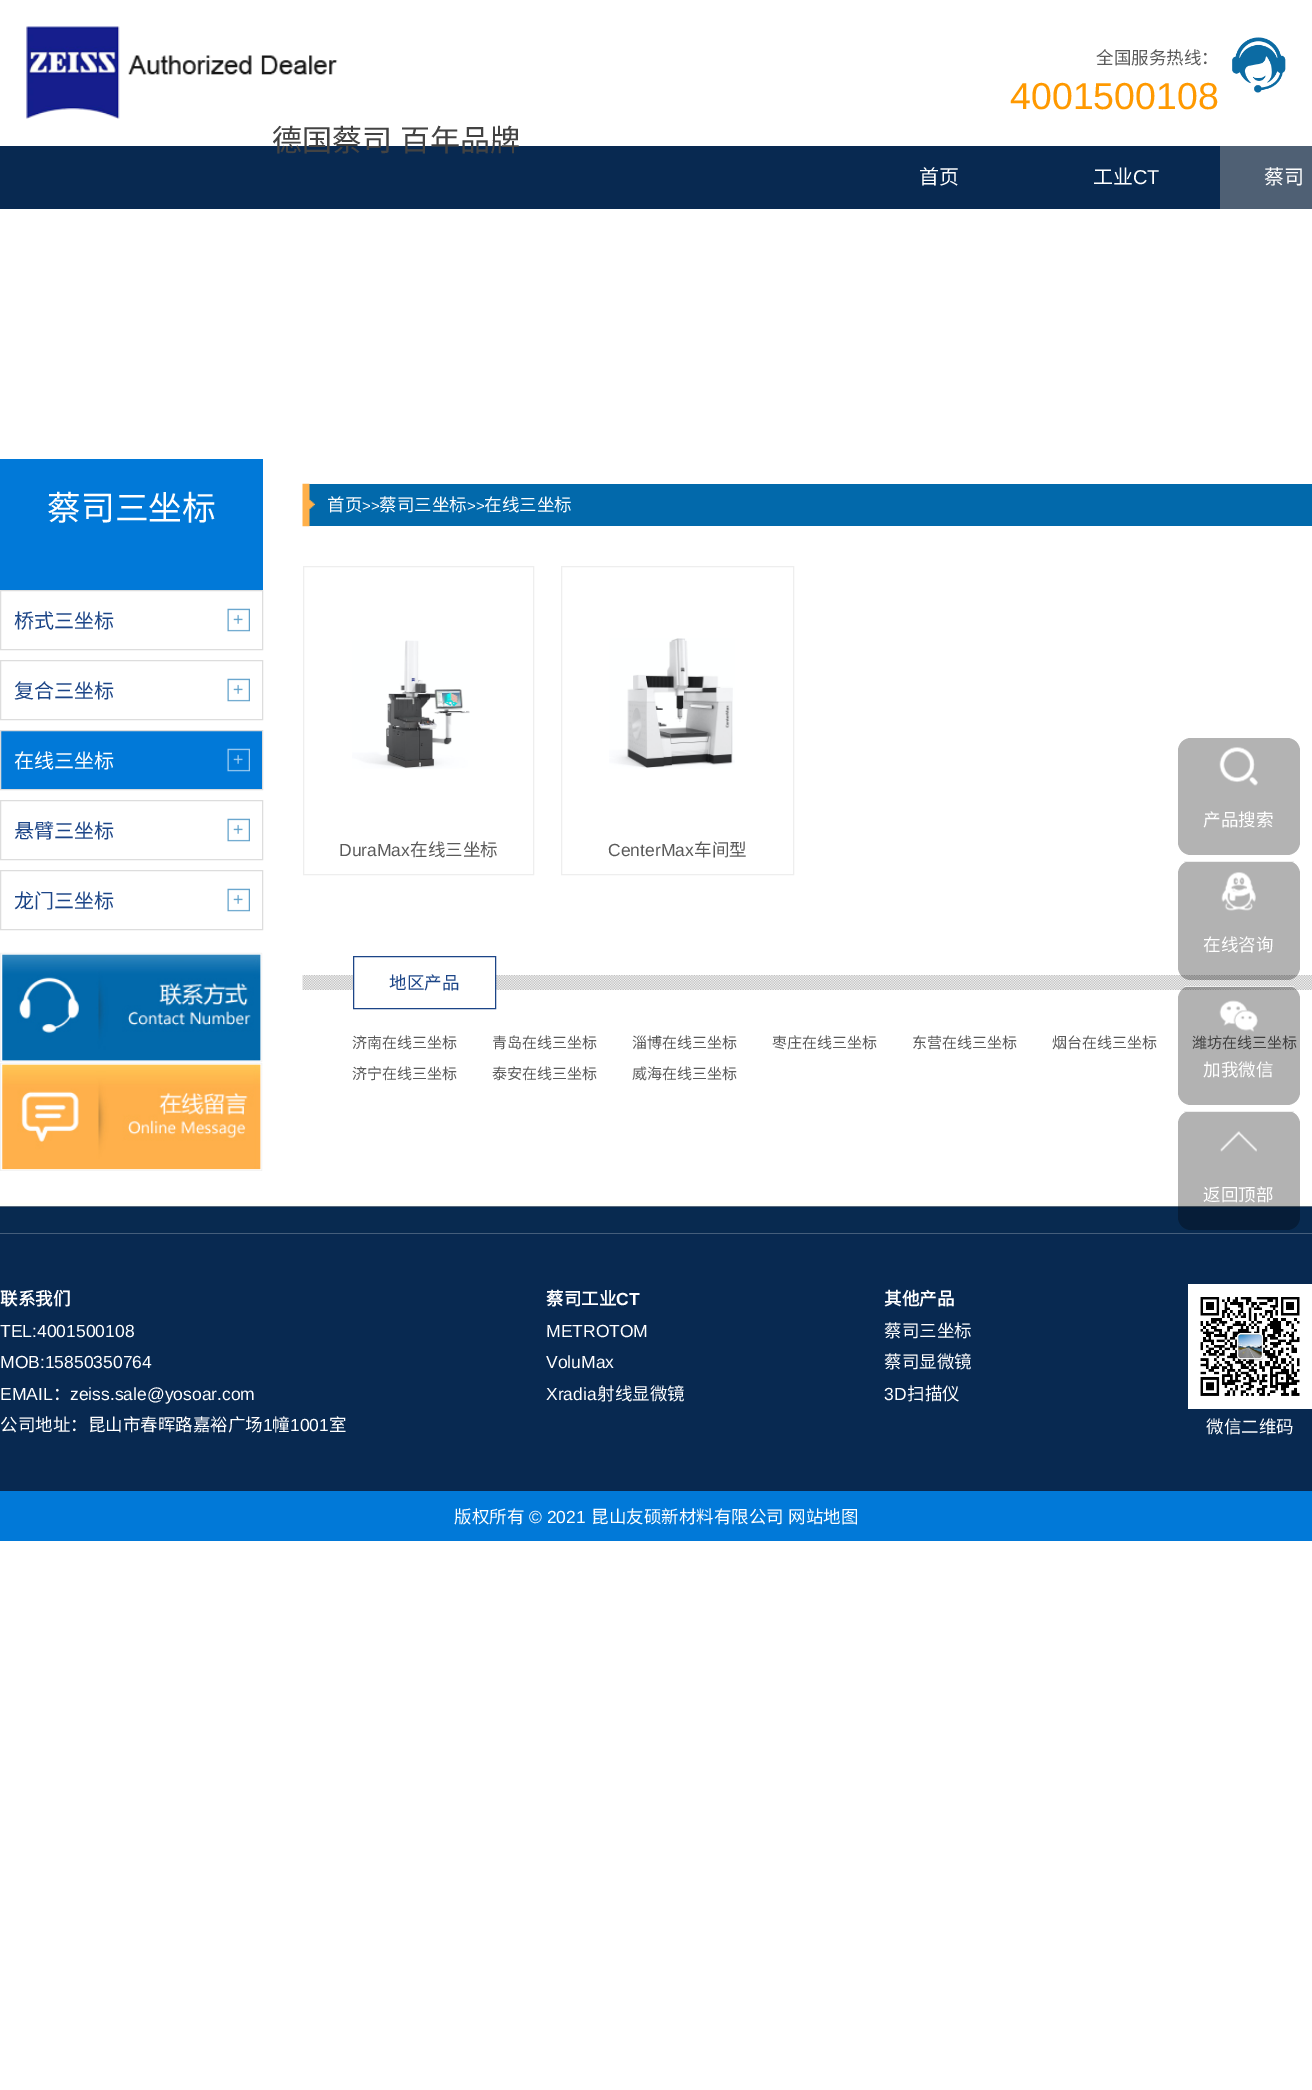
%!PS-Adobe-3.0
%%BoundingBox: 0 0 1312 2090
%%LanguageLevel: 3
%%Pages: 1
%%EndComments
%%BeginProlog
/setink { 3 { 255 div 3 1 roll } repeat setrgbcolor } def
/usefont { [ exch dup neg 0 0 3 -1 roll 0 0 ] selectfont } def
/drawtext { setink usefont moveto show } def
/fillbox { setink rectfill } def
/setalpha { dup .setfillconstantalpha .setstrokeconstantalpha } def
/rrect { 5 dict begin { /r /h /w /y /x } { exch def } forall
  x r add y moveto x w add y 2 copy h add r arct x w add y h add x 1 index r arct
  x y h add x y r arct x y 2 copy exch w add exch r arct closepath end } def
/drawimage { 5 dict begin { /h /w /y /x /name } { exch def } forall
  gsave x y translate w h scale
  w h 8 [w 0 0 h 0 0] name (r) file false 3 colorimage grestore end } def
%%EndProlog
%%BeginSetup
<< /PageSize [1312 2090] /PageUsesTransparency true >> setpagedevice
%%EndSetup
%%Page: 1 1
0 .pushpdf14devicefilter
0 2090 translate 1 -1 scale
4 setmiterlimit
0 0 1312 2090 255 255 255 fillbox
(全国服务热线：) 1096 64 /NotoSansCJKSC-Regular 17.5 90 90 90 drawtext
(4001500108) 1010 109 /LiberationSans-Regular 37.5 255 153 0 drawtext
(assets/img1.rgb) 1232 37 54 56 drawimage
(assets/img2.rgb) 26 26 312 93 drawimage
0 146 1220 63 8 41 81 fillbox
(德国蔡司) 272 151 /NotoSansCJKSC-Regular 30 67 67 67 drawtext
(百年品牌) 400 151 /NotoSansCJKSC-Regular 30 67 67 67 drawtext
(首页) 919 184 /NotoSansCJKSC-Regular 20 255 255 255 drawtext
(工业) 1093 184 /NotoSansCJKSC-Regular 20 255 255 255 drawtext
(CT) 1133 184 /LiberationSans-Regular 20 255 255 255 drawtext
1220 146 92 63 79 96 116 fillbox
(蔡司) 1264 184 /NotoSansCJKSC-Regular 20 255 255 255 drawtext
(assets/img3.rgb) 0 1203 1312 31 drawimage
0 459 263 131 1 121 216 fillbox
(蔡司三坐标) 47 520 /NotoSansCJKSC-Regular 33.75 255 255 255 drawtext
(assets/img4.rgb) 227 608 23 24 drawimage
221 221 221 setink
0.5 590.5 262 59 rectstroke
(桥式三坐标) 14 628 /NotoSansCJKSC-Regular 20 28 69 135 drawtext
(assets/img4.rgb) 227 678 23 24 drawimage
221 221 221 setink
0.5 660.5 262 59 rectstroke
(复合三坐标) 14 698 /NotoSansCJKSC-Regular 20 28 69 135 drawtext
1 731 261 58 1 121 216 fillbox
(assets/img5.rgb) 227 748 23 24 drawimage
221 221 221 setink
0.5 730.5 262 59 rectstroke
(在线三坐标) 14 768 /NotoSansCJKSC-Regular 20 255 255 255 drawtext
(assets/img4.rgb) 227 818 23 24 drawimage
221 221 221 setink
0.5 800.5 262 59 rectstroke
(悬臂三坐标) 14 838 /NotoSansCJKSC-Regular 20 28 69 135 drawtext
(assets/img4.rgb) 227 888 23 24 drawimage
221 221 221 setink
0.5 870.5 262 59 rectstroke
(龙门三坐标) 14 908 /NotoSansCJKSC-Regular 20 28 69 135 drawtext
(assets/img6.rgb) 0 952 263 111 drawimage
(assets/img7.rgb) 0 1063 263 108 drawimage
309 484 1003 42 2 105 171 fillbox
(assets/img8.rgb) 302 483 13 44 drawimage
(首页) 327 511 /NotoSansCJKSC-Regular 17.5 255 255 255 drawtext
(>>) 362 511 /LiberationSans-Regular 15 255 255 255 drawtext
(蔡司三坐标) 379 511 /NotoSansCJKSC-Regular 17.5 255 255 255 drawtext
(>>) 467 511 /LiberationSans-Regular 15 255 255 255 drawtext
(在线三坐标) 484 511 /NotoSansCJKSC-Regular 17.5 255 255 255 drawtext
238 238 238 setink
303.5 566.5 230 308 rectstroke
(assets/img9.rgb) 352 640 118 129 drawimage
(DuraMax) 339 856 /LiberationSans-Regular 17.5 90 90 90 drawtext
(在线三坐标) 410 856 /NotoSansCJKSC-Regular 17.5 90 90 90 drawtext
238 238 238 setink
561.5 566.5 232 308 rectstroke
(assets/img10.rgb) 609 638 126 131 drawimage
(CenterMax) 608 856 /LiberationSans-Regular 17.5 90 90 90 drawtext
(车间型) 694 856 /NotoSansCJKSC-Regular 17.5 90 90 90 drawtext
(assets/img11.rgb) 302 975 1010 15 drawimage
354 975 141 15 255 255 255 fillbox
28 69 135 setink
353.5 956.5 142 52 rectstroke
(地区产品) 389 989 /NotoSansCJKSC-Regular 17.5 28 69 135 drawtext
(济南在线三坐标) 352 1048 /NotoSansCJKSC-Regular 15 90 90 90 drawtext
(青岛在线三坐标) 492 1048 /NotoSansCJKSC-Regular 15 90 90 90 drawtext
(淄博在线三坐标) 632 1048 /NotoSansCJKSC-Regular 15 90 90 90 drawtext
(枣庄在线三坐标) 772 1048 /NotoSansCJKSC-Regular 15 90 90 90 drawtext
(东营在线三坐标) 912 1048 /NotoSansCJKSC-Regular 15 90 90 90 drawtext
(烟台在线三坐标) 1052 1048 /NotoSansCJKSC-Regular 15 90 90 90 drawtext
(潍坊在线三坐标) 1192 1048 /NotoSansCJKSC-Regular 15 90 90 90 drawtext
(济宁在线三坐标) 352 1079 /NotoSansCJKSC-Regular 15 90 90 90 drawtext
(泰安在线三坐标) 492 1079 /NotoSansCJKSC-Regular 15 90 90 90 drawtext
(威海在线三坐标) 632 1079 /NotoSansCJKSC-Regular 15 90 90 90 drawtext
0 1491 1312 50 1 121 216 fillbox
179 179 179 setink
1178 738 122 117 13 rrect fill
(assets/img12.rgb) 1219 747 39 39 drawimage
(产品搜索) 1203 826 /NotoSansCJKSC-Regular 17.5 255 255 255 drawtext
0.3 setalpha
0 0 0 setink
1178 861 122 119 13 rrect fill
1 setalpha
1184 861 110 1 238 238 238 fillbox
(assets/img13.rgb) 1221 872 35 39 drawimage
(在线咨询) 1203 951 /NotoSansCJKSC-Regular 17.5 255 255 255 drawtext
0.3 setalpha
0 0 0 setink
1178 986 122 119 13 rrect fill
1 setalpha
1184 986 110 1 238 238 238 fillbox
(assets/img14.rgb) 1219 1000 39 32 drawimage
(加我微信) 1203 1076 /NotoSansCJKSC-Regular 17.5 255 255 255 drawtext
0.3 setalpha
0 0 0 setink
1178 1111 122 119 13 rrect fill
1 setalpha
1184 1111 110 1 238 238 238 fillbox
(assets/img15.rgb) 1220 1131 37 21 drawimage
(返回顶部) 1203 1201 /NotoSansCJKSC-Regular 17.5 255 255 255 drawtext
(版权所有) 454 1523 /NotoSansCJKSC-Regular 17.5 255 255 255 drawtext
(© 2021) 529 1523 /LiberationSans-Regular 17.5 255 255 255 drawtext
(昆山友硕新材料有限公司) 591 1523 /NotoSansCJKSC-Regular 17.5 255 255 255 drawtext
(网站地图) 788 1523 /NotoSansCJKSC-Regular 17.5 255 255 255 drawtext
0 1234 1312 257 8 41 81 fillbox
(联系我们) 0 1305 /NotoSansCJKSC-Bold 17.5 255 255 255 drawtext
(TEL:4001500108) 0 1337 /LiberationSans-Regular 17.5 255 255 255 drawtext
(MOB:15850350764) 0 1368 /LiberationSans-Regular 17.5 255 255 255 drawtext
(EMAIL) 0 1400 /LiberationSans-Regular 17.5 255 255 255 drawtext
(：) 53 1400 /NotoSansCJKSC-Regular 17.5 255 255 255 drawtext
(zeiss.sale@yosoar.com) 70 1400 /LiberationSans-Regular 17.5 255 255 255 drawtext
(公司地址：昆山市春晖路嘉裕广场) 0 1431 /NotoSansCJKSC-Regular 17.5 255 255 255 drawtext
(1) 263 1431 /LiberationSans-Regular 17.5 255 255 255 drawtext
(幢) 272 1431 /NotoSansCJKSC-Regular 17.5 255 255 255 drawtext
(1001) 290 1431 /LiberationSans-Regular 17.5 255 255 255 drawtext
(室) 329 1431 /NotoSansCJKSC-Regular 17.5 255 255 255 drawtext
(蔡司工业) 546 1305 /NotoSansCJKSC-Bold 17.5 255 255 255 drawtext
(CT) 616 1305 /LiberationSans-Bold 17.5 255 255 255 drawtext
(METROTOM) 546 1337 /LiberationSans-Regular 17.5 255 255 255 drawtext
(VoluMax) 546 1368 /LiberationSans-Regular 17.5 255 255 255 drawtext
(Xradia) 546 1400 /LiberationSans-Regular 17.5 255 255 255 drawtext
(射线显微镜) 597 1400 /NotoSansCJKSC-Regular 17.5 255 255 255 drawtext
(其他产品) 884 1305 /NotoSansCJKSC-Bold 17.5 255 255 255 drawtext
(蔡司三坐标) 884 1337 /NotoSansCJKSC-Regular 17.5 255 255 255 drawtext
(蔡司显微镜) 884 1368 /NotoSansCJKSC-Regular 17.5 255 255 255 drawtext
(3D) 884 1400 /LiberationSans-Regular 17.5 255 255 255 drawtext
(扫描仪) 907 1400 /NotoSansCJKSC-Regular 17.5 255 255 255 drawtext
1188 1284 124 125 255 255 255 fillbox
(assets/img16.rgb) 1200 1297 100 99 drawimage
(微信二维码) 1206 1433 /NotoSansCJKSC-Regular 17.5 255 255 255 drawtext
.poppdf14devicefilter showpage
%%EOF
